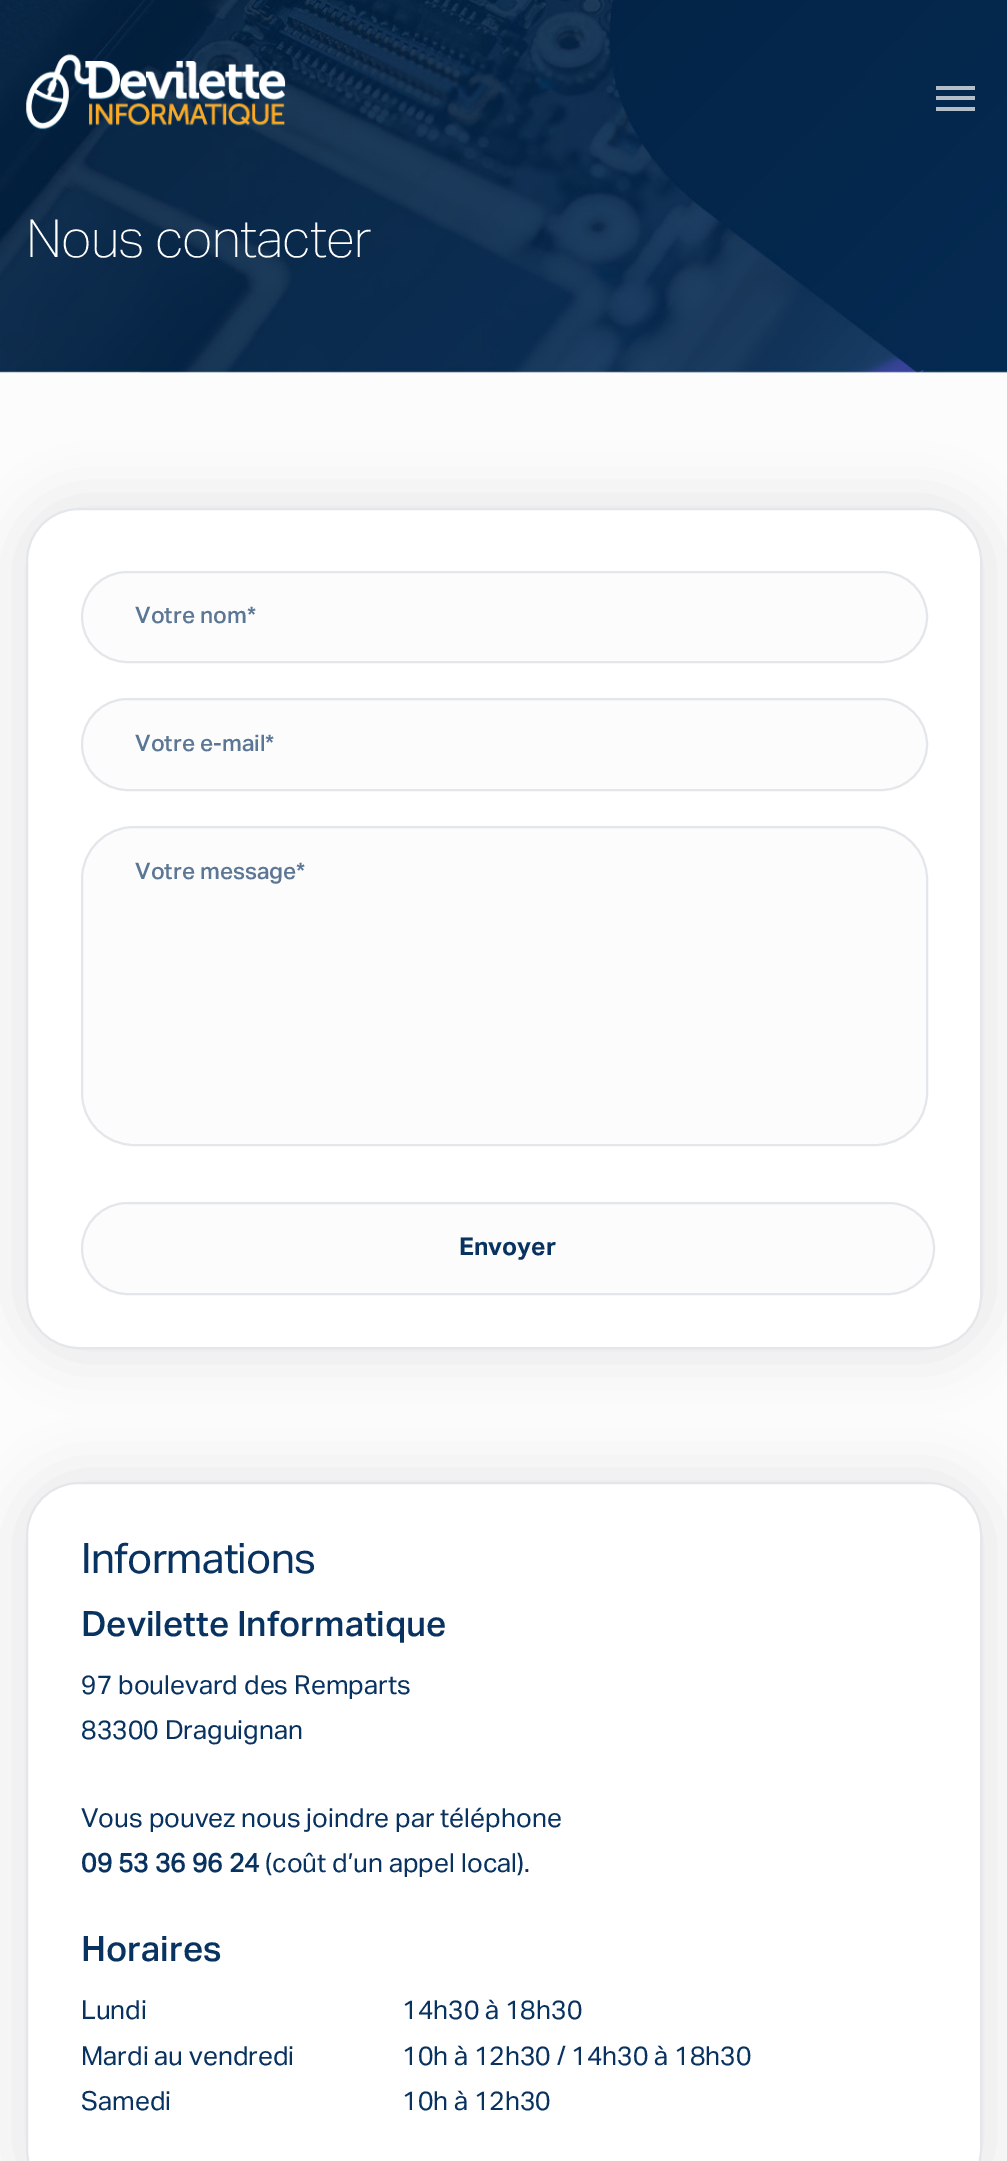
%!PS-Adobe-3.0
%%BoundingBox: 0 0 1007 2161
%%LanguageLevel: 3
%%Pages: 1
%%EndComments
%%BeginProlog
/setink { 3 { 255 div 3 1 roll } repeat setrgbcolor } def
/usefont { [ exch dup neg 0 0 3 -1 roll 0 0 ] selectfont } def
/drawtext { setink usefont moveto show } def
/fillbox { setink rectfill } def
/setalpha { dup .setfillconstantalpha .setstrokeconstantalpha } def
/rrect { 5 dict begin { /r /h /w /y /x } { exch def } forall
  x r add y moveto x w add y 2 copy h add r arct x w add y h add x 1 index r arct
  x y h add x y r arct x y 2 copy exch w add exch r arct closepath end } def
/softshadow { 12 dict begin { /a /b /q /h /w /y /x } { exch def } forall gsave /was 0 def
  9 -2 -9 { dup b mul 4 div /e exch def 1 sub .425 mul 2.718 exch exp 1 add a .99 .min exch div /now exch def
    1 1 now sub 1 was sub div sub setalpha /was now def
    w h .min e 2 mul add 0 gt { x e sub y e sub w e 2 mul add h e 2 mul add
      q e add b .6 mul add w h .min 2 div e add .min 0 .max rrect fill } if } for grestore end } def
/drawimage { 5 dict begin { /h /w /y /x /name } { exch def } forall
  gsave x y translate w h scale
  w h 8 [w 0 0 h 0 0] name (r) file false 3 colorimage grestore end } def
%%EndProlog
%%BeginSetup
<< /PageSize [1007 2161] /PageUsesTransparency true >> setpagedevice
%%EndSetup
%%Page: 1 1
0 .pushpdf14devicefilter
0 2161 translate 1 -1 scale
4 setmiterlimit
0 0 1007 2161 252 252 252 fillbox
(assets/img1.rgb) 0 0 1007 373 drawimage
(assets/img2.rgb) 26 54 260 76 drawimage
936 86 39 4 179 190 200 fillbox
936 96 39 4 179 190 200 fillbox
936 107 39 4 179 190 200 fillbox
/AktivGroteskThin-Thin 52.5 usefont
255 255 255 setink
26 257 moveto -0.8 0 (Nous contacter) ashow
0 0 0 setink
18 499 973 859 61 26 0.08 softshadow
255 255 255 setink
27 509 954 839 52 rrect gsave fill grestore
227 230 234 setink
2 setlinewidth
stroke
252 252 252 setink
82 572 845 90 45 rrect gsave fill grestore
227 230 234 setink
stroke
(Votre nom*) 135 623 /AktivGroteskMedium-Medium 22.75 91 119 149 drawtext
252 252 252 setink
82 699 845 91 45.5 rrect gsave fill grestore
227 230 234 setink
stroke
(Votre e-mail*) 135 751 /AktivGroteskMedium-Medium 22.75 91 119 149 drawtext
252 252 252 setink
82 827 845 318 52 rrect gsave fill grestore
227 230 234 setink
stroke
(Votre message*) 135 879 /AktivGroteskMedium-Medium 22.75 91 119 149 drawtext
252 252 252 setink
82 1203 852 91 45.5 rrect gsave fill grestore
227 230 234 setink
stroke
(Envoyer) 459 1255 /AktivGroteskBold-Bold 24.5 8 50 96 drawtext
0 0 0 setink
18 1474 973 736 61 26 0.08 softshadow
255 255 255 setink
27 1483 954 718 52 rrect gsave fill grestore
227 230 234 setink
stroke
/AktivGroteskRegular-Regular 42 usefont
8 50 96 setink
81 1573 moveto -0.75 0 (Informations) ashow
(Devilette Informatique) 81 1636 /AktivGroteskMedium-Medium 35 8 50 96 drawtext
(97 boulevard des Remparts) 81 1694 /AktivGroteskRegular-Regular 26.25 8 50 96 drawtext
(83300 Draguignan) 81 1739 /AktivGroteskRegular-Regular 26.25 8 50 96 drawtext
(Vous pouvez nous joindre par téléphone) 81 1827 /AktivGroteskRegular-Regular 26.25 8 50 96 drawtext
(09 53 36 96 24) 81 1872 /AktivGroteskRegular-Bold 26.25 8 50 96 drawtext
(\(coût d’un appel local\).) 265 1872 /AktivGroteskRegular-Regular 26.25 8 50 96 drawtext
(Horaires) 81 1961 /AktivGroteskMedium-Medium 35 8 50 96 drawtext
(Lundi) 81 2019 /AktivGroteskRegular-Regular 26.25 8 50 96 drawtext
(14h30 à 18h30) 402 2019 /AktivGroteskRegular-Regular 26.25 8 50 96 drawtext
(Mardi au vendredi) 81 2065 /AktivGroteskRegular-Regular 26.25 8 50 96 drawtext
(10h à 12h30 / 14h30 à 18h30) 402 2065 /AktivGroteskRegular-Regular 26.25 8 50 96 drawtext
(Samedi) 81 2110 /AktivGroteskRegular-Regular 26.25 8 50 96 drawtext
(10h à 12h30) 402 2110 /AktivGroteskRegular-Regular 26.25 8 50 96 drawtext
.poppdf14devicefilter showpage
%%EOF
